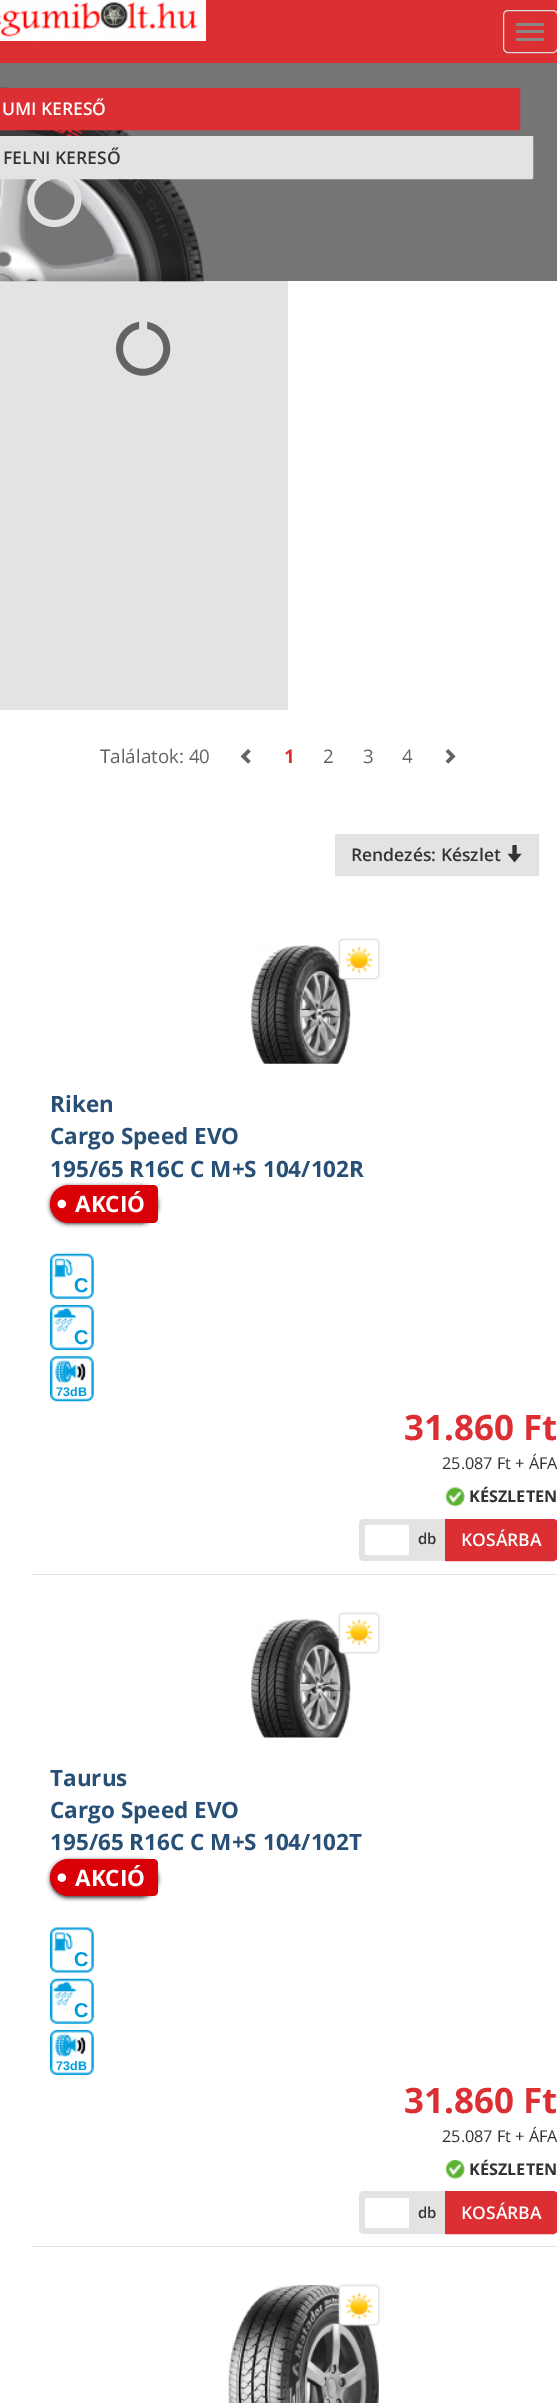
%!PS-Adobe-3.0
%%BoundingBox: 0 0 557 2403
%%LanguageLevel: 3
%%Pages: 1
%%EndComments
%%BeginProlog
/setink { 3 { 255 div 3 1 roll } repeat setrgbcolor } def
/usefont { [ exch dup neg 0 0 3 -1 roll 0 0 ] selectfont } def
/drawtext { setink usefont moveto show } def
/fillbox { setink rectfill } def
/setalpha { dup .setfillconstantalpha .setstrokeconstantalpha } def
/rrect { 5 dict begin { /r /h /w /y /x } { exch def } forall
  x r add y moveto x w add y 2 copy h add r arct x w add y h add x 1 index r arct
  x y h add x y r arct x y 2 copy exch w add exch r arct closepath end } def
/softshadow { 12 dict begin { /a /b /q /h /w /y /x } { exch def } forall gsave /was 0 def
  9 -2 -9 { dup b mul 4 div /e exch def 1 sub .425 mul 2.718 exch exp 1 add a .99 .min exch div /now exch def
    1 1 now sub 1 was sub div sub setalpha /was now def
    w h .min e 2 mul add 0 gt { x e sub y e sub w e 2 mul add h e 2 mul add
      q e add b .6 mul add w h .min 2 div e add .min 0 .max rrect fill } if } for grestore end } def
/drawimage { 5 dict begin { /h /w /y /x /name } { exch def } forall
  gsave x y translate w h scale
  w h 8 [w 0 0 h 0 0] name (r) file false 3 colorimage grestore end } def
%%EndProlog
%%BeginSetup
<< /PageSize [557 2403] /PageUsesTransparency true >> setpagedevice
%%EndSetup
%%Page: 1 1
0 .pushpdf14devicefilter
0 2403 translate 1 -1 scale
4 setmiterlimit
0 0 557 2403 255 255 255 fillbox
0 0 557 63 220 47 51 fillbox
(assets/img1.rgb) 0 0 206 41 drawimage
221 221 221 setink
503.5 10.5 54 42 4.5 rrect stroke
136 136 136 setink
516 23 28 3 1.5 rrect fill
516 30 28 3 1.5 rrect fill
516 38 28 3 1.5 rrect fill
0 63 557 218 117 117 117 fillbox
0 281 288 429 227 227 227 fillbox
(assets/img2.rgb) 0 87 204 195 drawimage
(assets/img3.rgb) 27 179 55 48 drawimage
220 47 51 setink
-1.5 88.5 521 41 0.5 rrect gsave fill grestore
stroke
(UMI KERESŐ) 2 115 /OpenSans-SemiBold 17.5 255 255 255 drawtext
227 227 227 setink
-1.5 136.5 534 42 0.5 rrect gsave fill grestore
stroke
(FELNI KERESŐ) 3 164 /OpenSans-SemiBold 17.5 51 51 51 drawtext
(assets/img4.rgb) 0 268 200 14 drawimage
(assets/img5.rgb) 116 321 55 55 drawimage
(Találatok: 40) 100 763 /OpenSans-Regular 18.75 99 99 98 drawtext
(assets/img6.rgb) 240 749 11 15 drawimage
(1) 284 763 /OpenSans-Bold 18.75 220 47 51 drawtext
(2) 323 763 /OpenSans-Regular 18.75 99 99 98 drawtext
(3) 363 763 /OpenSans-Regular 18.75 99 99 98 drawtext
(4) 402 763 /OpenSans-Regular 18.75 99 99 98 drawtext
(assets/img7.rgb) 445 749 11 15 drawimage
227 227 227 setink
335.5 834.5 203 41 0.5 rrect gsave fill grestore
stroke
(Rendezés: Készlet) 351 861 /OpenSans-SemiBold 17.5 51 51 51 drawtext
(assets/img8.rgb) 507 845 15 18 drawimage
31 1574 526 1 227 227 227 fillbox
(assets/img9.rgb) 251 945 100 119 drawimage
gsave
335 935 moveto 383 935 lineto 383 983 lineto 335 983 lineto closepath 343 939 moveto 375 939 lineto 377 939 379 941 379 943 curveto 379 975 lineto 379 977 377 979 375 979 curveto 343 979 lineto 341 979 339 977 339 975 curveto 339 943 lineto 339 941 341 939 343 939 curveto closepath eoclip newpath
339 939 40 40 4 1 1 softshadow
grestore
255 255 255 setink
339 939 40 40 4 rrect fill
(assets/img10.rgb) 345 946 29 32 drawimage
227 227 227 setink
339.5 939.5 39 39 3.5 rrect stroke
(Riken) 50 1112 /OpenSans-Bold 22.5 40 79 118 drawtext
(Cargo Speed EVO) 50 1144 /OpenSans-Bold 22.5 40 79 118 drawtext
(195/65 R16C C M+S 104/102R) 50 1177 /OpenSans-Bold 22.5 40 79 118 drawtext
0 0 0 setink
50 1186 108 38 19 2 0.75 softshadow
217 0 8 setink
69 1185 moveto 153 1185 lineto 156 1185 158 1187 158 1190 curveto 158 1218 lineto 158 1221 156 1223 153 1223 curveto 69 1223 lineto 58.5 1223 50 1214.5 50 1204 curveto 50 1193.5 58.5 1185 69 1185 curveto closepath fill
(assets/img11.rgb) 57 1199 10 10 drawimage
(AKCIÓ) 75 1212 /OpenSans-Bold 22.5 255 255 255 drawtext
(assets/img12.rgb) 50 1253 44 46 drawimage
(C) 74 1292 /LiberationSans-Bold 20 0 155 219 drawtext
(assets/img13.rgb) 50 1305 44 45 drawimage
(C) 74 1344 /LiberationSans-Bold 20 0 155 219 drawtext
(assets/img14.rgb) 50 1356 44 46 drawimage
(assets/img15.rgb) 77 1363 10 18 drawimage
(73dB) 56 1396 /LiberationSans-Bold 12.5 0 155 219 drawtext
(31.860 Ft) 404 1440 /OpenSans-Bold 35 220 47 51 drawtext
(25.087 Ft + ÁFA) 442 1469 /OpenSans-Regular 16.25 51 51 51 drawtext
(assets/img16.rgb) 446 1487 19 20 drawimage
(KÉSZLETEN) 469 1502 /OpenSans-Bold 16.25 51 51 51 drawtext
227 227 227 setink
364 1519 moveto 409 1519 lineto 409 1561 lineto 364 1561 lineto 361 1561 359 1559 359 1556 curveto 359 1524 lineto 359 1521 361 1519 364 1519 curveto closepath 365 1525 moveto 409 1525 lineto 409 1555 lineto 365 1555 lineto closepath eofill
409 1519 37 42 227 227 227 fillbox
(db) 418 1544 /OpenSans-SemiBold 15 51 51 51 drawtext
220 47 51 setink
446 1519.5 moveto 553 1519.5 lineto 555.5 1519.5 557.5 1521.5 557.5 1524 curveto 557.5 1556 lineto 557.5 1558.5 555.5 1560.5 553 1560.5 curveto 446 1560.5 lineto 445.5 1560.5 445.5 1560.5 445.5 1560 curveto 445.5 1520 lineto 445.5 1519.5 445.5 1519.5 446 1519.5 curveto closepath gsave fill grestore
stroke
(KOSÁRBA) 461 1546 /OpenSans-SemiBold 17.5 255 255 255 drawtext
31 2246 526 1 227 227 227 fillbox
(assets/img17.rgb) 251 1618 100 120 drawimage
gsave
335 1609 moveto 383 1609 lineto 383 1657 lineto 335 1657 lineto closepath 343 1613 moveto 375 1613 lineto 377 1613 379 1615 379 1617 curveto 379 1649 lineto 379 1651 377 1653 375 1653 curveto 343 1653 lineto 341 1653 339 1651 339 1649 curveto 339 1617 lineto 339 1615 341 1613 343 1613 curveto closepath eoclip newpath
339 1613 40 40 4 1 1 softshadow
grestore
255 255 255 setink
339 1613 40 40 4 rrect fill
(assets/img18.rgb) 344 1618 30 32 drawimage
227 227 227 setink
339.5 1613.5 39 39 3.5 rrect stroke
(Taurus) 50 1786 /OpenSans-Bold 22.5 40 79 118 drawtext
(Cargo Speed EVO) 50 1818 /OpenSans-Bold 22.5 40 79 118 drawtext
(195/65 R16C C M+S 104/102T) 50 1850 /OpenSans-Bold 22.5 40 79 118 drawtext
0 0 0 setink
50 1860 108 38 19 2 0.75 softshadow
217 0 8 setink
68.5 1859 moveto 153 1859 lineto 156 1859 158 1861 158 1864 curveto 158 1891 lineto 158 1894 156 1896 153 1896 curveto 68.5 1896 lineto 58.5 1896 50 1887.5 50 1877.5 curveto 50 1867.5 58.5 1859 68.5 1859 curveto closepath fill
(assets/img19.rgb) 57 1873 10 9 drawimage
(AKCIÓ) 75 1886 /OpenSans-Bold 22.5 255 255 255 drawtext
(assets/img20.rgb) 50 1927 44 46 drawimage
(C) 74 1966 /LiberationSans-Bold 20 0 155 219 drawtext
(assets/img21.rgb) 50 1978 44 46 drawimage
(C) 74 2017 /LiberationSans-Bold 20 0 155 219 drawtext
(assets/img22.rgb) 50 2030 44 45 drawimage
(assets/img23.rgb) 77 2037 10 18 drawimage
(73dB) 56 2070 /LiberationSans-Bold 12.5 0 155 219 drawtext
(31.860 Ft) 404 2113 /OpenSans-Bold 35 220 47 51 drawtext
(25.087 Ft + ÁFA) 442 2142 /OpenSans-Regular 16.25 51 51 51 drawtext
(assets/img24.rgb) 446 2160 19 19 drawimage
(KÉSZLETEN) 469 2175 /OpenSans-Bold 16.25 51 51 51 drawtext
227 227 227 setink
364 2191 moveto 409 2191 lineto 409 2234 lineto 364 2234 lineto 361 2234 359 2232 359 2229 curveto 359 2196 lineto 359 2193 361 2191 364 2191 curveto closepath 365 2198 moveto 409 2198 lineto 409 2228 lineto 365 2228 lineto closepath eofill
409 2191 37 43 227 227 227 fillbox
(db) 418 2218 /OpenSans-SemiBold 15 51 51 51 drawtext
220 47 51 setink
446 2191.5 moveto 553 2191.5 lineto 555.5 2191.5 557.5 2193.5 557.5 2196 curveto 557.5 2229 lineto 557.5 2231.5 555.5 2233.5 553 2233.5 curveto 446 2233.5 lineto 445.5 2233.5 445.5 2233.5 445.5 2233 curveto 445.5 2192 lineto 445.5 2191.5 445.5 2191.5 446 2191.5 curveto closepath gsave fill grestore
stroke
(KOSÁRBA) 461 2219 /OpenSans-SemiBold 17.5 255 255 255 drawtext
(assets/img26.rgb) 228 2285 151 118 drawimage
gsave
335 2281 moveto 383 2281 lineto 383 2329 lineto 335 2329 lineto closepath 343 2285 moveto 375 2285 lineto 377 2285 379 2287 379 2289 curveto 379 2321 lineto 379 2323 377 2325 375 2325 curveto 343 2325 lineto 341 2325 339 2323 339 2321 curveto 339 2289 lineto 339 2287 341 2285 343 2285 curveto closepath eoclip newpath
227 227 227 setink
339 2285 40 40 4 1 1 softshadow
grestore
339 2285 40 40 4 rrect fill
(assets/img25.rgb) 345 2292 29 32 drawimage
227 227 227 setink
339.5 2285.5 39 39 3.5 rrect stroke
.poppdf14devicefilter showpage
%%EOF
